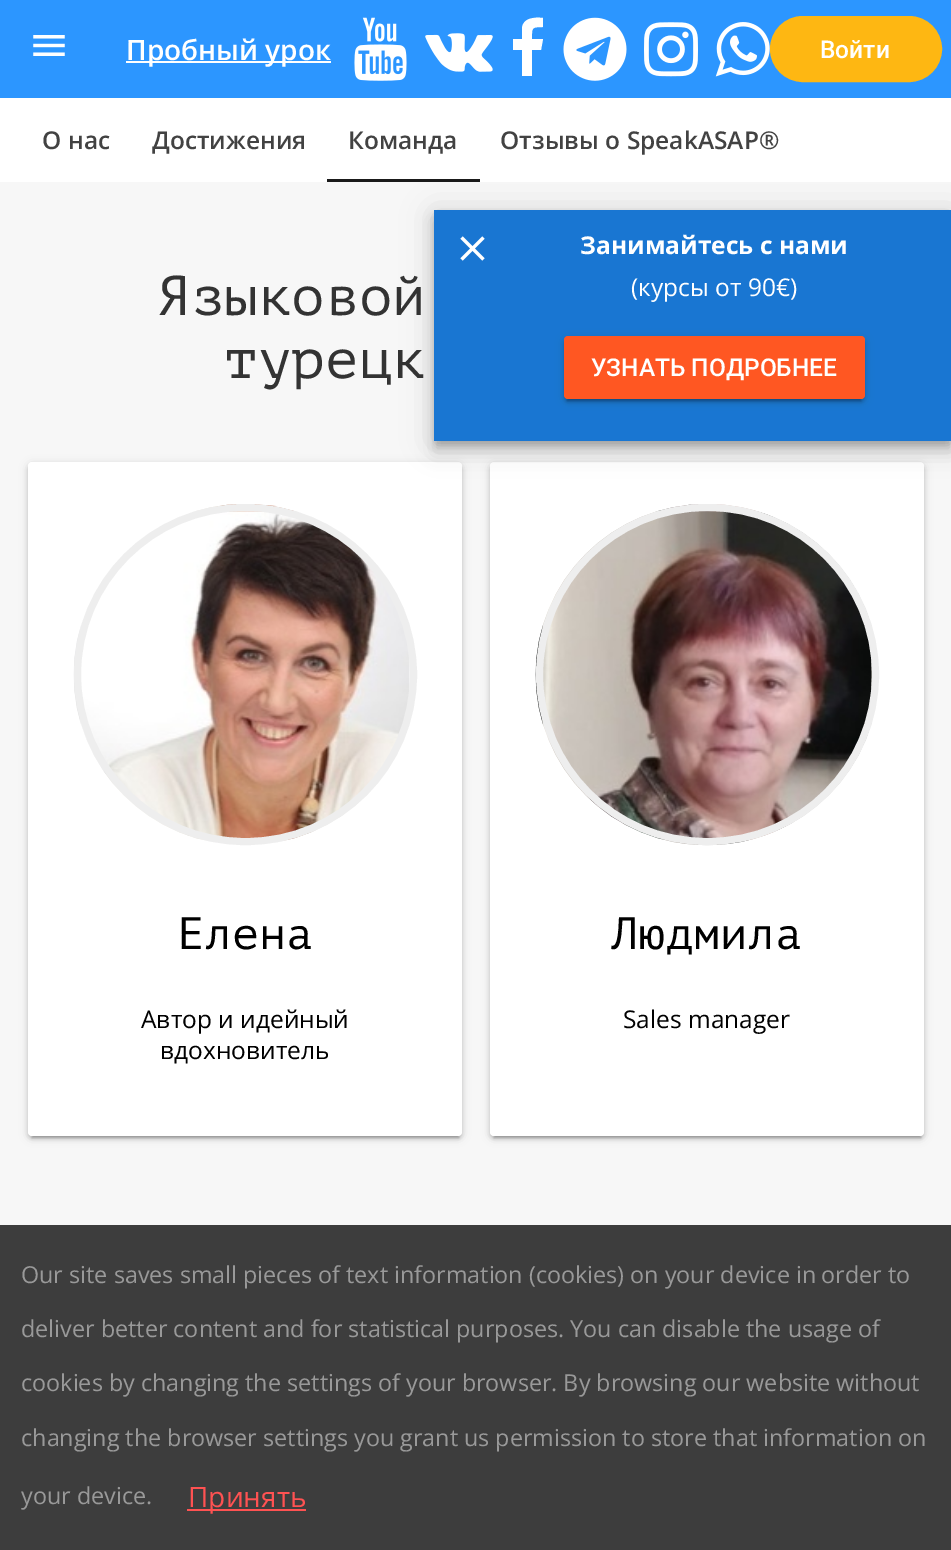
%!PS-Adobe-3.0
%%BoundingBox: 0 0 951 1550
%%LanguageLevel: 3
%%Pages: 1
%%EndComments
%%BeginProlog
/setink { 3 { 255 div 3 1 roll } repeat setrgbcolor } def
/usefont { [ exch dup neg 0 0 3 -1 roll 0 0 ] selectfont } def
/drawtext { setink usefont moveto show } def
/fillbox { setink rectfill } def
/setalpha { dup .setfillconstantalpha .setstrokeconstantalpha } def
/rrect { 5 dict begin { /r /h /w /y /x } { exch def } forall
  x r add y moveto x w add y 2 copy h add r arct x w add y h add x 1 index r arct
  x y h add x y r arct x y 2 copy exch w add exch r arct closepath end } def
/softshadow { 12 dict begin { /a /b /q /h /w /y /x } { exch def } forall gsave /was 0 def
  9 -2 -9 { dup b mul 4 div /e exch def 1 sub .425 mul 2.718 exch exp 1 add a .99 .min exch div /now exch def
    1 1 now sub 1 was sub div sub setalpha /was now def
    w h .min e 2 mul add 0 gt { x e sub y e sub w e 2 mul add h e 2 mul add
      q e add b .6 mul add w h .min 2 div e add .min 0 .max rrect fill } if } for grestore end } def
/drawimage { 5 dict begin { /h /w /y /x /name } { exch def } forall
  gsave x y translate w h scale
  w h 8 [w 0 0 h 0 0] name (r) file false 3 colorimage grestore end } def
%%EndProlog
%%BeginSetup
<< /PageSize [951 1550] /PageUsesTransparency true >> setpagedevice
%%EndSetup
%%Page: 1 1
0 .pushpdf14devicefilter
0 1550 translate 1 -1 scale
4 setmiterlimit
0 0 951 1550 247 247 247 fillbox
0 0 951 98 44 150 255 fillbox
(assets/img1.rgb) 33 35 32 21 drawimage
126 61 205 2 255 255 255 fillbox
(Пробный урок) 126 60 /OpenSans-SemiBold 28 255 255 255 drawtext
(assets/img2.rgb) 354 17 53 64 drawimage
(assets/img3.rgb) 425 33 68 39 drawimage
543 18 moveto 543 27 lineto 531 27 532 28 532 39 curveto 543 39 lineto 541 50 lineto 532 50 lineto 532 76 lineto 522 76 lineto 522 50 lineto 513 50 lineto 513 39 lineto 522 39 lineto 522 28 lineto 523 18 534 17 543 18 curveto closepath fill
(assets/img4.rgb) 563 17 64 64 drawimage
(assets/img5.rgb) 644 22 54 55 drawimage
(assets/img6.rgb) 715 22 55 55 drawimage
254 183 18 setink
771 17 170 64 32 rrect gsave fill grestore
2 setlinewidth
stroke
(Войти) 820 58 /Roboto-Medium 24.5 255 255 255 drawtext
0 0 0 setink
28 464 434 674 4 4.5 0.12 softshadow
32 471 427 667 0 1 0.2 softshadow
28 466 434 673 4 2 0.14 softshadow
255 255 255 setink
28 462 434 674 4 rrect fill
0 0 0 setink
490 464 434 674 4 4.5 0.12 softshadow
494 471 427 667 0 1 0.2 softshadow
490 466 434 673 4 2 0.14 softshadow
255 255 255 setink
490 462 434 674 4 rrect fill
0 0 0 setink
434 212 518 231 0 16 0.12 softshadow
0 98 951 84 255 255 255 fillbox
(О нас) 42 149 /OpenSans-SemiBold 24.5 66 66 66 drawtext
(Достижения) 152 149 /OpenSans-SemiBold 24.5 66 66 66 drawtext
(Команда) 348 149 /OpenSans-SemiBold 24.5 66 66 66 drawtext
327 179 153 3 26 26 26 fillbox
(Отзывы о SpeakASAP®) 500 149 /OpenSans-SemiBold 24.5 66 66 66 drawtext
0 0 0 setink
436 217 514 228 0 4.5 0.2 softshadow
434 221 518 231 0 9 0.14 softshadow
434 210 517 231 25 118 210 fillbox
(assets/img7.rgb) 460 236 25 25 drawimage
(Занимайтесь с нами) 580 254 /OpenSans-Bold 24.5 255 255 255 drawtext
(\(курсы от 90€\)) 631 296 /OpenSans-Regular 24.5 255 255 255 drawtext
0 0 0 setink
564 338 301 63 4 4.5 0.12 softshadow
567 345 294 56 0 1 0.2 softshadow
564 340 301 63 4 2 0.14 softshadow
255 87 34 setink
564 336 301 63 4 rrect fill
(УЗНАТЬ ПОДРОБНЕЕ) 591 376 /Roboto-Medium 24.5 255 255 255 drawtext
(Языковой) 157 315 /PTMono-Regular 56 51 51 51 drawtext
(турецк) 224 378 /PTMono-Regular 56 51 51 51 drawtext
(assets/img8.rgb) 73 504 339 340 drawimage
238 238 238 setink
7 setlinewidth
77.5 507.5 336 334 167 rrect stroke
(Елена) 177 949 /PTMono-Regular 45.5 0 0 0 drawtext
(Автор и идейный) 141 1028 /OpenSans-Regular 24.5 0 0 0 drawtext
(вдохновитель) 160 1059 /OpenSans-Regular 24.5 0 0 0 drawtext
(assets/img9.rgb) 535 504 344 342 drawimage
238 238 238 setink
539.5 507.5 336 334 167 rrect stroke
(Людмила) 611 949 /PTMono-Regular 45.5 0 0 0 drawtext
(Sales manager) 623 1028 /OpenSans-Regular 24.5 0 0 0 drawtext
0 1225 951 325 61 61 61 fillbox
(Our site saves small pieces of text information \(cookies\) on your device in) 21 1283 /OpenSans-Regular 23.35 153 153 153 drawtext
(order to) 821 1283 /OpenSans-Regular 23.35 153 153 153 drawtext
(deliver better content and for statistical purposes. You can disable the usage of) 21 1337 /OpenSans-Regular 23.35 153 153 153 drawtext
(cookies by changing the settings of your browser. By browsing our website without) 21 1391 /OpenSans-Regular 23.35 153 153 153 drawtext
(changing the browser settings you grant us permission to store that information on) 21 1446 /OpenSans-Regular 23.35 153 153 153 drawtext
(your device.) 21 1504 /OpenSans-Regular 23.35 153 153 153 drawtext
187 1509 119 2 255 82 82 fillbox
(Принять) 188 1507 /OpenSans-Regular 28 255 82 82 drawtext
.poppdf14devicefilter showpage
%%EOF
